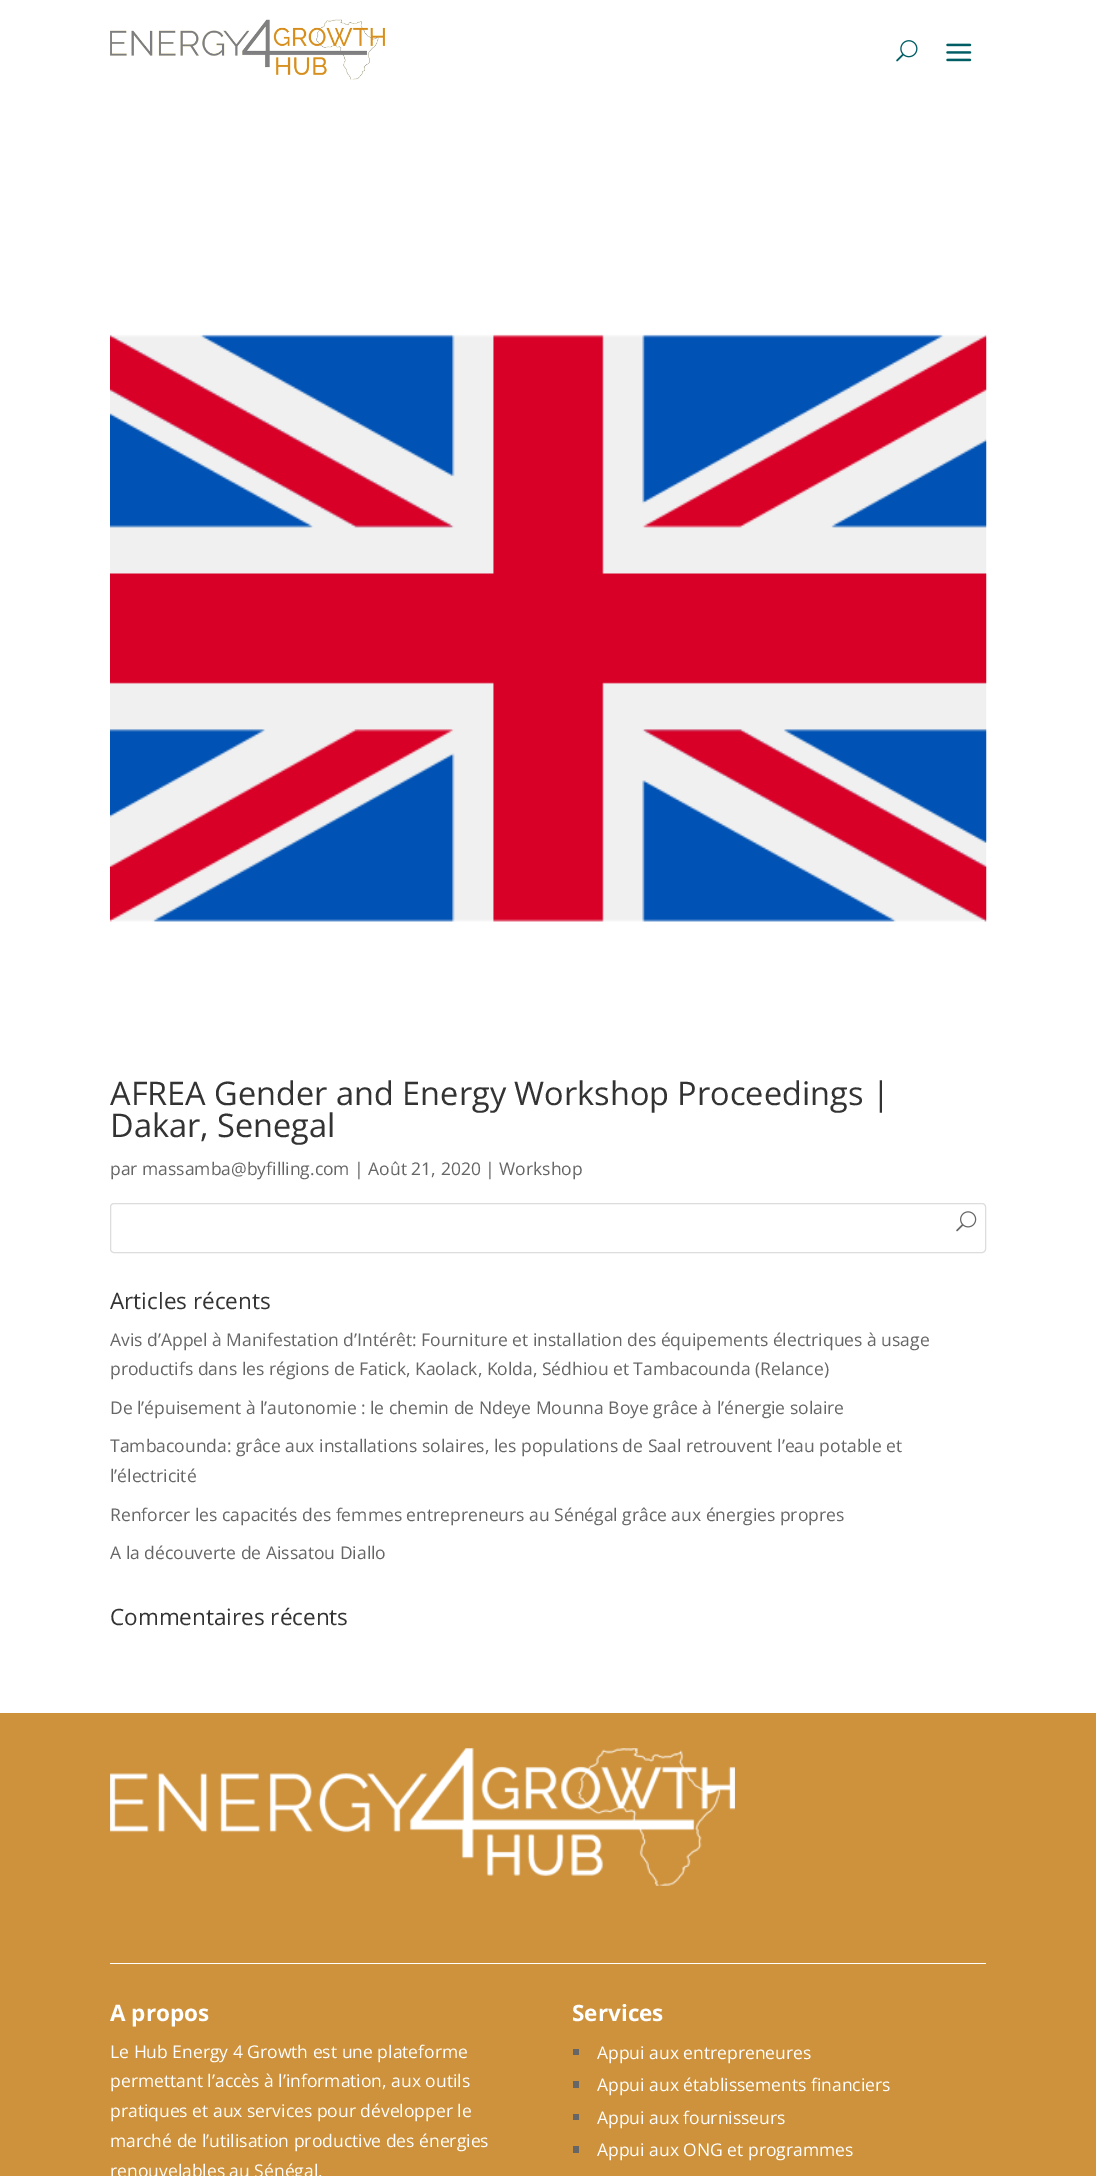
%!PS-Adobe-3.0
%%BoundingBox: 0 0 1096 2176
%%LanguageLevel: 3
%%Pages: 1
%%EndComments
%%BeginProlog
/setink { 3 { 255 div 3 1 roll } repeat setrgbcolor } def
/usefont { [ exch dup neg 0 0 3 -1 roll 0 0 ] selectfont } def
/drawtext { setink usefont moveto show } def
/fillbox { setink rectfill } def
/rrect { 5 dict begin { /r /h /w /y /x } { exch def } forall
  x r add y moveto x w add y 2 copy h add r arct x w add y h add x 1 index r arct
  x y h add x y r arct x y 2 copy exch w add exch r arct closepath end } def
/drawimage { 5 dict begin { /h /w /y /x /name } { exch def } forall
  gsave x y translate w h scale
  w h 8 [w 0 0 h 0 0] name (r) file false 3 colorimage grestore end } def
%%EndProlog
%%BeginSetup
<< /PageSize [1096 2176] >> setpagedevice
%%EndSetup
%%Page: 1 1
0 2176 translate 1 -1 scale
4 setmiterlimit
0 0 1096 2176 255 255 255 fillbox
(assets/img1.rgb) 110 19 275 61 drawimage
(assets/img2.rgb) 896 40 22 22 drawimage
(assets/img3.rgb) 946 43 26 19 drawimage
(assets/img4.rgb) 110 334 877 588 drawimage
(AFREA Gender and Energy Workshop Proceedings |) 110 1105 /OpenSans-Regular 32.5 51 51 51 drawtext
(Dakar, Senegal) 110 1137 /OpenSans-Regular 32.5 51 51 51 drawtext
(par massamba@byfilling.com | Août 21, 2020 | Workshop) 110 1175 /OpenSans-Regular 17.5 102 102 102 drawtext
221 221 221 setink
110.5 1203.5 875 49 3.5 rrect stroke
(assets/img5.rgb) 956 1211 21 21 drawimage
(Articles récents) 110 1309 /OpenSans-Regular 22.5 51 51 51 drawtext
(Avis d’Appel à Manifestation d’Intérêt: Fourniture et installation des équipements électriques à usage) 110 1346 /OpenSans-Regular 17.5 102 102 102 drawtext
(productifs dans les régions de Fatick, Kaolack, Kolda, Sédhiou et Tambacounda \(Relance\)) 110 1375 /OpenSans-Regular 17.5 102 102 102 drawtext
(De l’épuisement à l’autonomie : le chemin de Ndeye Mounna Boye grâce à l’énergie solaire) 110 1414 /OpenSans-Regular 17.5 102 102 102 drawtext
(Tambacounda: grâce aux installations solaires, les populations de Saal retrouvent l’eau potable et) 110 1452 /OpenSans-Regular 17.5 102 102 102 drawtext
(l’électricité) 110 1482 /OpenSans-Regular 17.5 102 102 102 drawtext
(Renforcer les capacités des femmes entrepreneurs au Sénégal grâce aux énergies propres) 110 1521 /OpenSans-Regular 17.5 102 102 102 drawtext
(A la découverte de Aissatou Diallo) 110 1559 /OpenSans-Regular 17.5 102 102 102 drawtext
(Commentaires récents) 110 1625 /OpenSans-Regular 22.5 51 51 51 drawtext
0 1713 1096 463 206 146 60 fillbox
110 1963 876 1 255 255 255 fillbox
(assets/img6.rgb) 110 1748 625 138 drawimage
(A propos) 110 2021 /OpenSans-Bold 22.5 255 255 255 drawtext
(Le Hub Energy 4 Growth est une plateforme) 110 2058 /OpenSans-Regular 17.5 255 255 255 drawtext
(permettant l’accès à l’information, aux outils) 110 2087 /OpenSans-Regular 17.5 255 255 255 drawtext
(pratiques et aux services pour développer le) 110 2117 /OpenSans-Regular 17.5 255 255 255 drawtext
(marché de l’utilisation productive des énergies) 110 2147 /OpenSans-Regular 17.5 255 255 255 drawtext
(renouvelables au Sénégal.) 110 2177 /OpenSans-Regular 17.5 255 255 255 drawtext
(Services) 572 2021 /OpenSans-Bold 22.5 255 255 255 drawtext
573 2049 6 6 102 102 102 fillbox
(Appui aux entrepreneures) 597 2059 /OpenSans-Regular 17.5 255 255 255 drawtext
573 2081 6 7 102 102 102 fillbox
(Appui aux établissements financiers) 597 2091 /OpenSans-Regular 17.5 255 255 255 drawtext
573 2114 6 6 102 102 102 fillbox
(Appui aux fournisseurs) 597 2124 /OpenSans-Regular 17.5 255 255 255 drawtext
573 2146 6 7 102 102 102 fillbox
(Appui aux ONG et programmes) 597 2156 /OpenSans-Regular 17.5 255 255 255 drawtext
showpage
%%EOF
